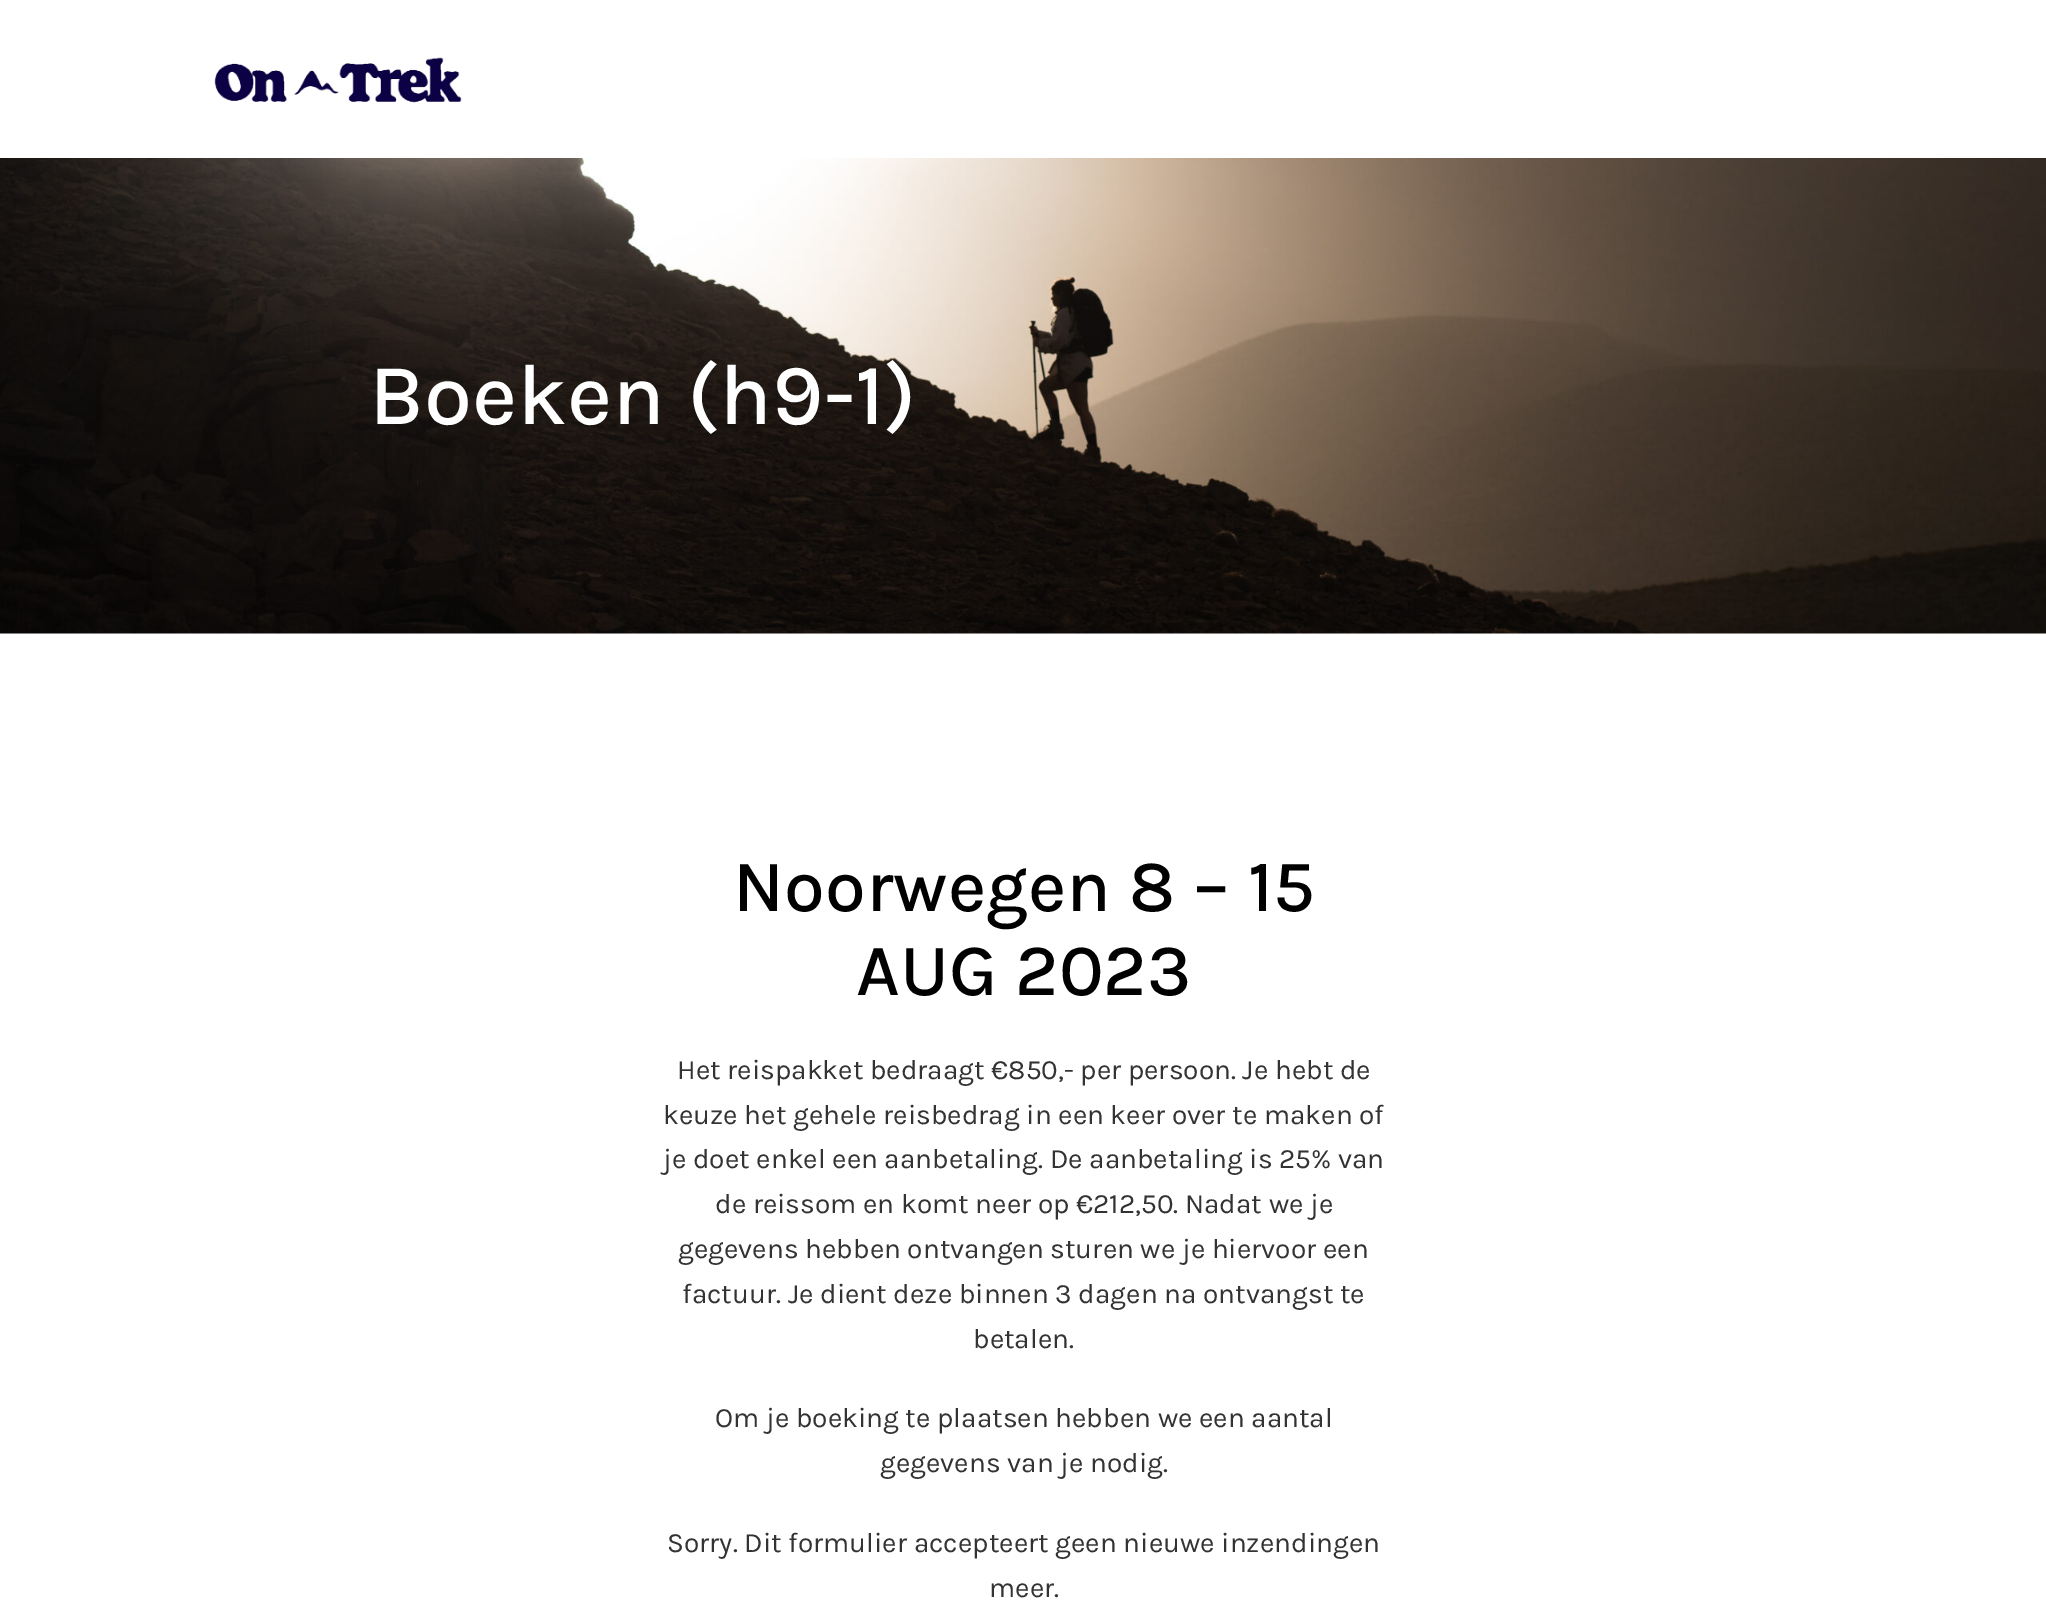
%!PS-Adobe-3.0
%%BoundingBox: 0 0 2046 1612
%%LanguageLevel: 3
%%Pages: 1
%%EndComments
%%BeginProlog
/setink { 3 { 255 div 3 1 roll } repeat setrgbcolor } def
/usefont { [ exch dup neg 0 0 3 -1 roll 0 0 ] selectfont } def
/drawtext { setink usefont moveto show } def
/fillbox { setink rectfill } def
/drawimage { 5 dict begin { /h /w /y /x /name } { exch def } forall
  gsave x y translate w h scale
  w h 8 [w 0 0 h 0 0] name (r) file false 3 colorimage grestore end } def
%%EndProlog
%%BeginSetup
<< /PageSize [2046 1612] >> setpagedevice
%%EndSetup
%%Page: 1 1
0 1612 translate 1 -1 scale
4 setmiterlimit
0 0 2046 1612 255 255 255 fillbox
(assets/img1.rgb) 214 57 248 46 drawimage
(assets/img2.rgb) 0 158 2046 476 drawimage
(Boeken \(h9-1\)) 369 424 /Karla-Medium 86.75 255 255 255 drawtext
(Noorwegen 8 – 15) 733 911 /Karla-Medium 73.5 0 0 0 drawtext
(AUG 2023) 856 995 /Karla-Medium 73.5 0 0 0 drawtext
(Het reispakket bedraagt €850,- per persoon. Je hebt de) 677 1079 /Karla-Regular 28 51 51 51 drawtext
(keuze het gehele reisbedrag in een keer over te maken of) 663 1124 /Karla-Regular 28 51 51 51 drawtext
(je doet enkel een aanbetaling. De aanbetaling is 25% van) 663 1168 /Karla-Regular 28 51 51 51 drawtext
(de reissom en komt neer op €212,50. Nadat we je) 715 1213 /Karla-Regular 28 51 51 51 drawtext
(gegevens hebben ontvangen sturen we je hiervoor een) 678 1258 /Karla-Regular 28 51 51 51 drawtext
(factuur. Je dient deze binnen 3 dagen na ontvangst te) 682 1303 /Karla-Regular 28 51 51 51 drawtext
(betalen.) 973 1348 /Karla-Regular 28 51 51 51 drawtext
(Om je boeking te plaatsen hebben we een aantal) 715 1427 /Karla-Regular 28 51 51 51 drawtext
(gegevens van je nodig.) 880 1472 /Karla-Regular 28 51 51 51 drawtext
(Sorry. Dit formulier accepteert geen nieuwe inzendingen) 667 1552 /Karla-Regular 28 51 51 51 drawtext
(meer.) 989 1597 /Karla-Regular 28 51 51 51 drawtext
showpage
%%EOF
